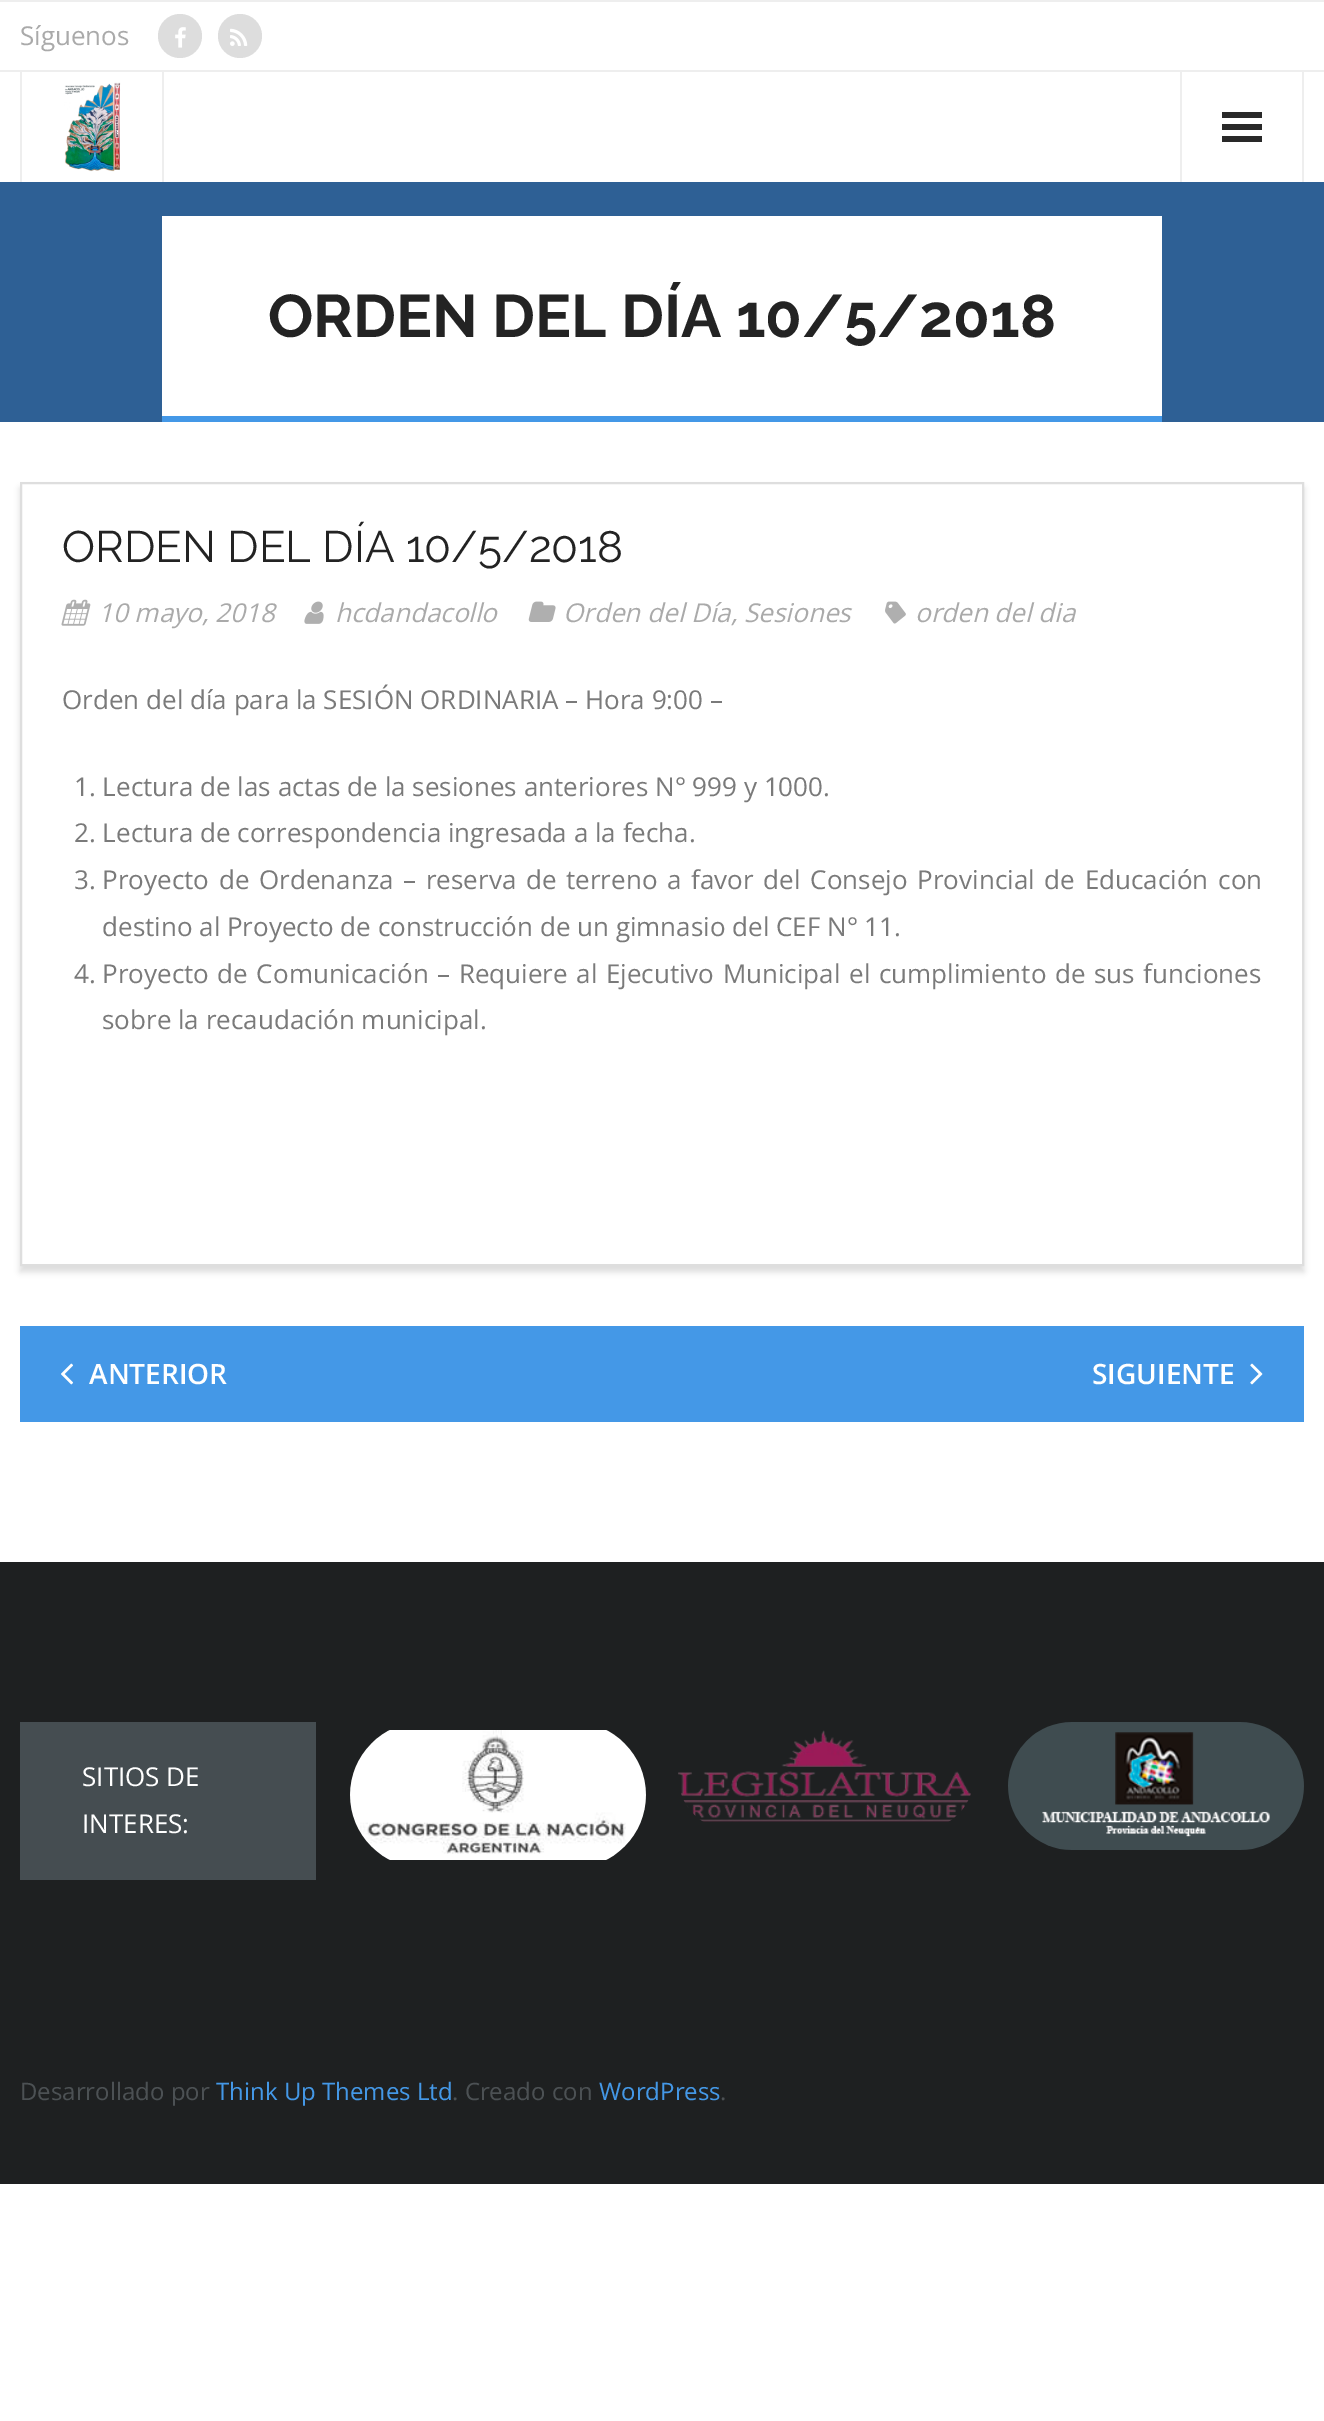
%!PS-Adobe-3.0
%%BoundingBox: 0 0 1324 2421
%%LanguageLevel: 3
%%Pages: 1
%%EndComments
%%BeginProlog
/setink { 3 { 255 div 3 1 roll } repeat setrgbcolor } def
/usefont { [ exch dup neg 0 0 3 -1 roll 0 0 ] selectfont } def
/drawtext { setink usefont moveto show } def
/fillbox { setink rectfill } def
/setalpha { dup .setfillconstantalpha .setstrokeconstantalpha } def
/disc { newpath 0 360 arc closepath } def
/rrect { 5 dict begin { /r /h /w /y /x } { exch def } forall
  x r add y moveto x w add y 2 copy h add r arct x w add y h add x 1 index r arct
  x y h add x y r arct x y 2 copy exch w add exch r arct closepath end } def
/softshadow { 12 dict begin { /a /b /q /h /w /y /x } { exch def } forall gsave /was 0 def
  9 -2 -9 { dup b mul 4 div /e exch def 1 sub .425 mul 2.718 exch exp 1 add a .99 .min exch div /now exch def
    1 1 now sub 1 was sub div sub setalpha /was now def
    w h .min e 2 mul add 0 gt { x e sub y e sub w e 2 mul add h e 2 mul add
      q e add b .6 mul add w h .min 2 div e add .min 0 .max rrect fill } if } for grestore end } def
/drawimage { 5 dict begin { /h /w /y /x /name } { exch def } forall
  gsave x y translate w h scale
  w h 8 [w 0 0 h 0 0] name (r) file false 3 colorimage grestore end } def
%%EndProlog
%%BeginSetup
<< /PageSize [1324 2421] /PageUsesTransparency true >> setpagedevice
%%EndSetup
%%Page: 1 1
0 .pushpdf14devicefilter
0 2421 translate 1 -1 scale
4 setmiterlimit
0 0 1324 2421 255 255 255 fillbox
0 0 1324 2 238 238 238 fillbox
0 70 1324 2 238 238 238 fillbox
(Síguenos) 20 45 /OpenSans-Regular 26 170 170 170 drawtext
221 221 221 setink
180 36 22 disc fill
(assets/img1.rgb) 175 27 11 21 drawimage
240 36 22 disc fill
(assets/img2.rgb) 230 28 18 18 drawimage
162 72 2 110 238 238 238 fillbox
20 72 2 110 238 238 238 fillbox
(assets/img3.rgb) 64 82 57 90 drawimage
1302 72 2 110 238 238 238 fillbox
1180 72 2 110 238 238 238 fillbox
1222 112 40 6 41 41 41 fillbox
1222 124 40 6 41 41 41 fillbox
1222 136 40 6 41 41 41 fillbox
0 182 1324 240 46 96 149 fillbox
162 216 1000 200 255 255 255 fillbox
162 416 1000 6 68 152 231 fillbox
(ORDEN DEL DÍA 10/5/2018) 268 337 /Raleway-Bold 60 35 35 35 drawtext
gsave
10 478 moveto 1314 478 lineto 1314 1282 lineto 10 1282 lineto closepath 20 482 moveto 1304 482 lineto 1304 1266 lineto 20 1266 lineto closepath eoclip newpath
20 488 1284 784 0 3 0.15 softshadow
grestore
222 222 222 setink
2 setlinewidth
21 483 1282 782 rectstroke
(ORDEN DEL DÍA 10/5/2018) 62 562 /Raleway-Regular 44 35 35 35 drawtext
(assets/img4.rgb) 61 599 30 27 drawimage
(10 mayo, 2018) 98 622 /OpenSans-Italic 26 170 170 170 drawtext
(assets/img5.rgb) 304 601 20 23 drawimage
(hcdandacollo) 335 622 /OpenSans-Italic 26 170 170 170 drawtext
(assets/img6.rgb) 528 601 28 21 drawimage
(Orden del Día, Sesiones) 563 622 /OpenSans-Italic 26 170 170 170 drawtext
(assets/img7.rgb) 885 601 21 23 drawimage
(orden del dia) 915 622 /OpenSans-Italic 26 170 170 170 drawtext
(Orden del día para la SESIÓN ORDINARIA – Hora 9:00 –) 62 709 /OpenSans-Regular 26 122 122 122 drawtext
(1. Lectura de las actas de la sesiones anteriores N° 999 y 1000.) 74 796 /OpenSans-Regular 26 122 122 122 drawtext
(2. Lectura de correspondencia ingresada a la fecha.) 74 842 /OpenSans-Regular 26 122 122 122 drawtext
(3.) 74 889 /OpenSans-Regular 26 122 122 122 drawtext
102 889 moveto 3 0 32 (Proyecto de Ordenanza – reserva de terreno a favor del Consejo Provincial de Educación con) widthshow
(destino al Proyecto de construcción de un gimnasio del CEF N° 11.) 102 936 /OpenSans-Regular 26 122 122 122 drawtext
(4.) 74 983 /OpenSans-Regular 26 122 122 122 drawtext
102 983 moveto 1.8 0 32 (Proyecto de Comunicación – Requiere al Ejecutivo Municipal el cumplimiento de sus funciones) widthshow
(sobre la recaudación municipal.) 102 1029 /OpenSans-Regular 26 122 122 122 drawtext
20 1326 1284 96 68 152 231 fillbox
(assets/img8.rgb) 61 1363 12 22 drawimage
(ANTERIOR) 89 1384 /OpenSans-SemiBold 28 255 255 255 drawtext
(SIGUIENTE) 1092 1384 /OpenSans-SemiBold 28 255 255 255 drawtext
(assets/img9.rgb) 1250 1363 13 22 drawimage
0 1562 1324 622 30 32 33 fillbox
20 1722 296 158 69 77 81 fillbox
(SITIOS DE) 82 1786 /OpenSans-Regular 26 255 255 255 drawtext
(INTERES:) 82 1833 /OpenSans-Regular 26 255 255 255 drawtext
(assets/img10.rgb) 350 1730 296 130 drawimage
(assets/img11.rgb) 678 1730 293 92 drawimage
(assets/img12.rgb) 1008 1722 296 128 drawimage
(Desarrollado por) 20 2100 /OpenSans-Regular 24 76 81 84 drawtext
(Think Up Themes Ltd) 216 2100 /OpenSans-Regular 24 68 152 231 drawtext
(. Creado con) 452 2100 /OpenSans-Regular 24 76 81 84 drawtext
(WordPress) 599 2100 /OpenSans-Regular 24 68 152 231 drawtext
(.) 720 2100 /OpenSans-Regular 24 76 81 84 drawtext
.poppdf14devicefilter showpage
%%EOF
